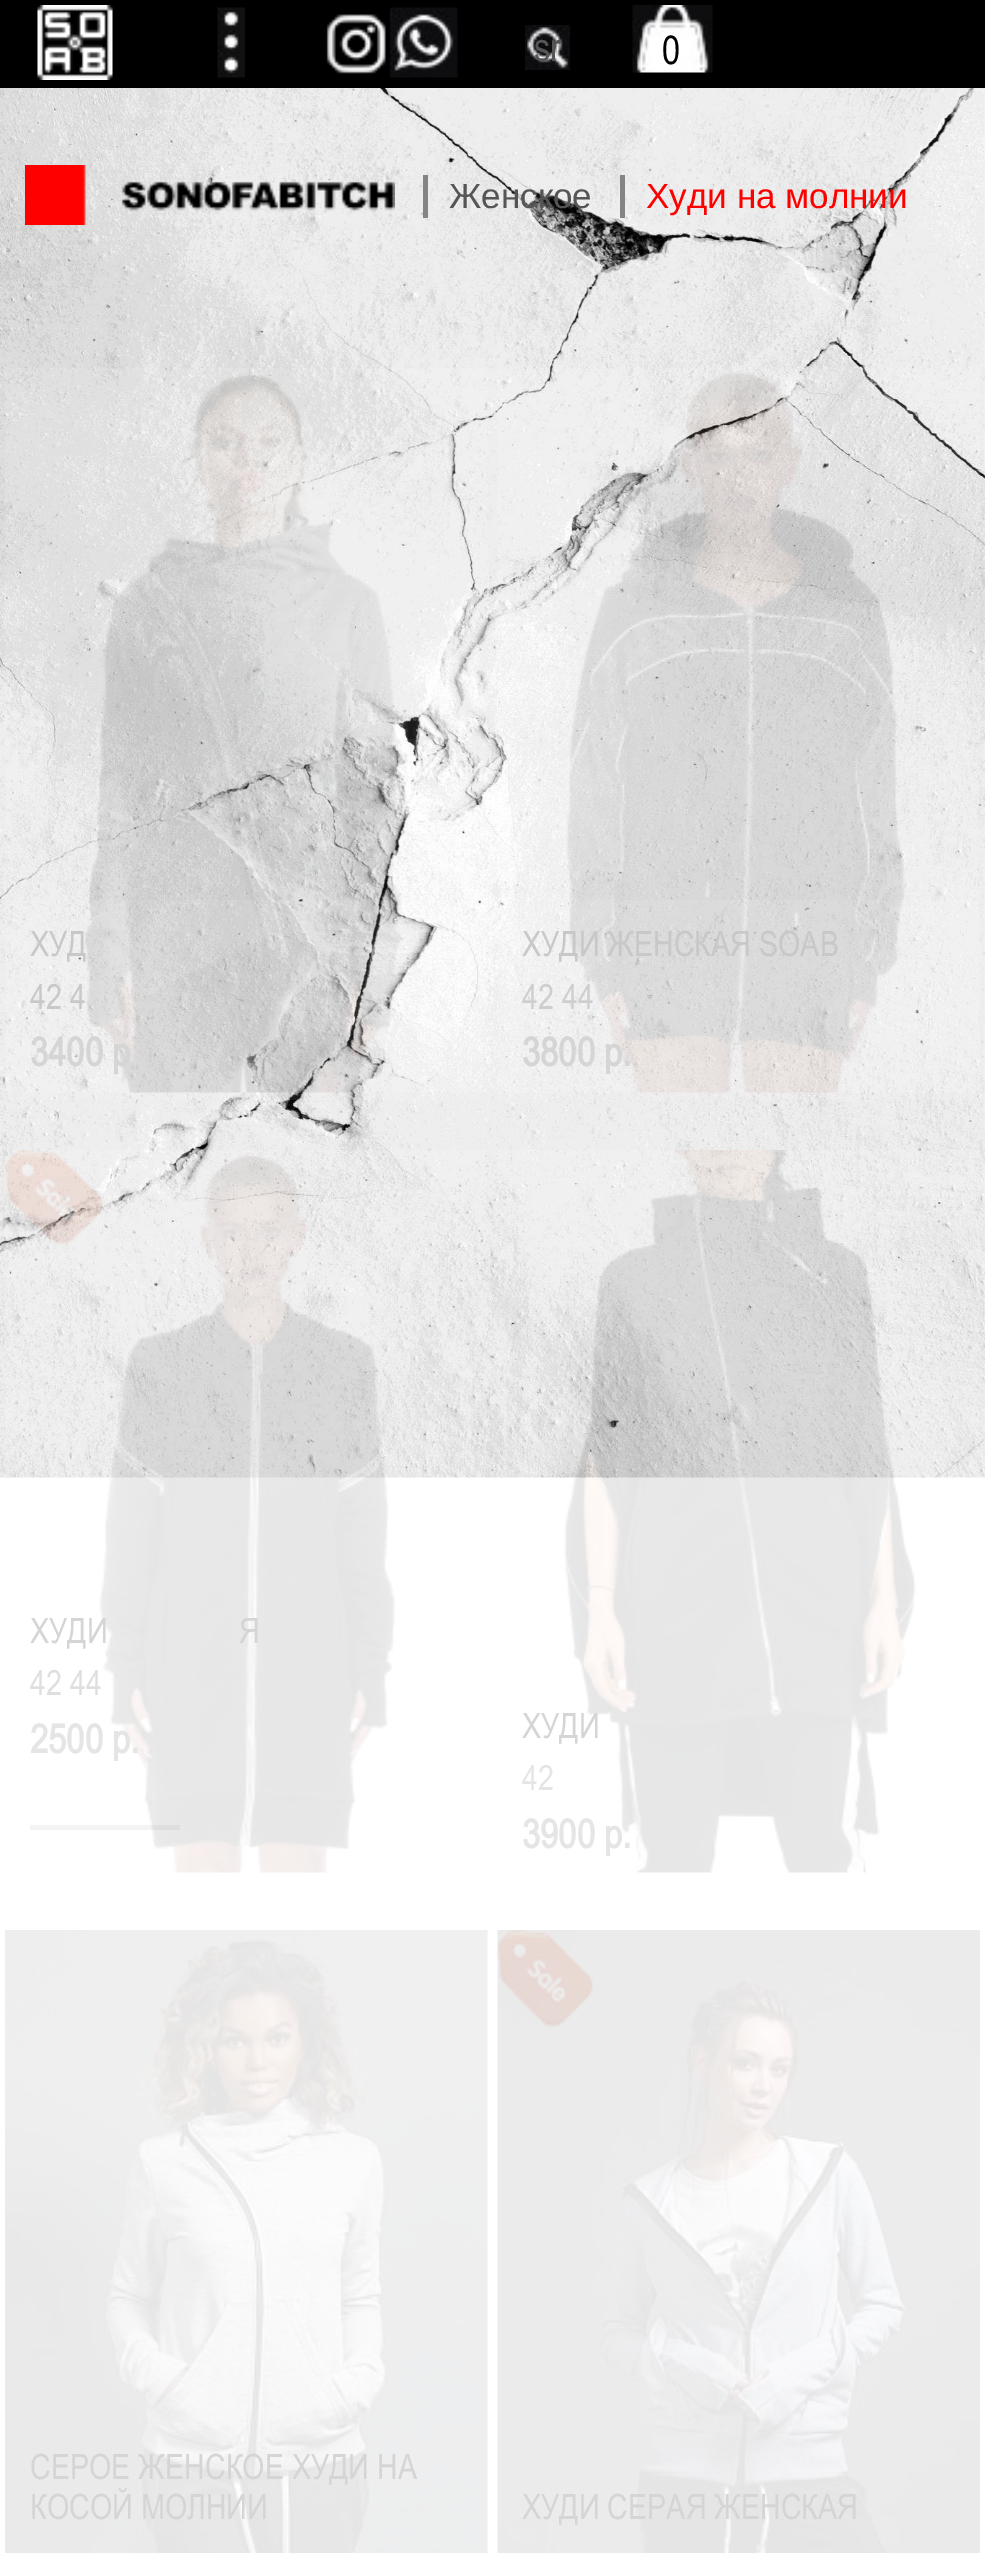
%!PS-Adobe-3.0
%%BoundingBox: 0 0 985 2553
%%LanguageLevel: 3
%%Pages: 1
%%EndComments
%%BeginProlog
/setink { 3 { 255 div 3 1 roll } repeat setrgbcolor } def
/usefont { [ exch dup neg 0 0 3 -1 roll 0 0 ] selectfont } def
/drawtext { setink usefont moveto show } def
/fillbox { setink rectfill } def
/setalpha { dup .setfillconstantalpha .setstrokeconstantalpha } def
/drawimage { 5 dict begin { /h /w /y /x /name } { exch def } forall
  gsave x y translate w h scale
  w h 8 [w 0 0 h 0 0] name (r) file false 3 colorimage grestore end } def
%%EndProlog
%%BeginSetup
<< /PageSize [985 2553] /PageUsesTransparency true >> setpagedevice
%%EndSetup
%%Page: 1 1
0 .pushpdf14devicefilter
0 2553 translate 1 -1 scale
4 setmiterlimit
0 0 985 2553 255 255 255 fillbox
(assets/img1.rgb) 0 88 985 1390 drawimage
0 0 985 88 0 0 0 fillbox
(assets/img2.rgb) 37 5 76 75 drawimage
(assets/img3.rgb) 217 7 28 71 drawimage
(assets/img4.rgb) 326 14 60 60 drawimage
(assets/img5.rgb) 390 7 68 71 drawimage
(assets/img6.rgb) 525 25 45 45 drawimage
(sr) 534 61 /Arial-Regular 40 85 85 85 drawtext
(assets/img7.rgb) 632 5 81 68 drawimage
(0) 662 64 /Arial-Regular 40 0 0 0 drawtext
(assets/img8.rgb) 25 165 370 60 drawimage
423 175 5 43 132 132 132 fillbox
(Женское) 449 208 /LiberationSans-Regular 35 85 85 85 drawtext
620 175 5 43 132 132 132 fillbox
(Худи на молнии) 646 208 /LiberationSans-Regular 35 255 0 0 drawtext
(assets/img9.rgb) 5 368 483 725 drawimage
0.07 setalpha
7 900 474 200 255 255 255 fillbox
1 setalpha
(ХУД) 30 956 /Arial-Regular 35 200 200 200 drawtext
(42 4) 30 1009 /Arial-Regular 35 200 200 200 drawtext
(3400 р) 30 1066 /Arial-Bold 40 213 213 213 drawtext
(assets/img10.rgb) 497 367 483 726 drawimage
0.07 setalpha
500 900 478 199 255 255 255 fillbox
1 setalpha
(ХУДИ ЖЕНСКАЯ SOAB) 522 956 /Arial-Regular 35 200 200 200 drawtext
(42 44) 522 1009 /Arial-Regular 35 207 206 206 drawtext
(3800 р.) 522 1066 /Arial-Bold 40 213 213 213 drawtext
(assets/img11.rgb) 5 1150 482 723 drawimage
(assets/img12.rgb) 5 1150 98 95 drawimage
(ХУДИ) 30 1643 /Arial-Regular 35 213 213 213 drawtext
(Я) 239 1643 /Arial-Regular 35 213 213 213 drawtext
(42 44) 30 1695 /Arial-Regular 35 224 223 223 drawtext
(2500 р.) 30 1753 /Arial-Bold 40 229 229 229 drawtext
0.1 setalpha
30 1825 150 5 136 136 136 fillbox
1 setalpha
(assets/img13.rgb) 498 1150 482 723 drawimage
(ХУДИ) 522 1738 /Arial-Regular 35 213 213 213 drawtext
(42) 522 1790 /Arial-Regular 35 229 229 229 drawtext
(3900 р.) 522 1848 /Arial-Bold 40 229 229 229 drawtext
(assets/img14.rgb) 5 1930 483 623 drawimage
(СЕРОЕ ЖЕНСКОЕ ХУДИ НА) 30 2479 /Arial-Regular 35 213 213 213 drawtext
(КОСОЙ МОЛНИИ) 30 2519 /Arial-Regular 35 213 213 213 drawtext
(assets/img15.rgb) 497 1930 483 623 drawimage
(assets/img16.rgb) 497 1930 96 98 drawimage
(ХУДИ СЕРАЯ ЖЕНСКАЯ) 522 2519 /Arial-Regular 35 213 213 213 drawtext
.poppdf14devicefilter showpage
%%EOF
